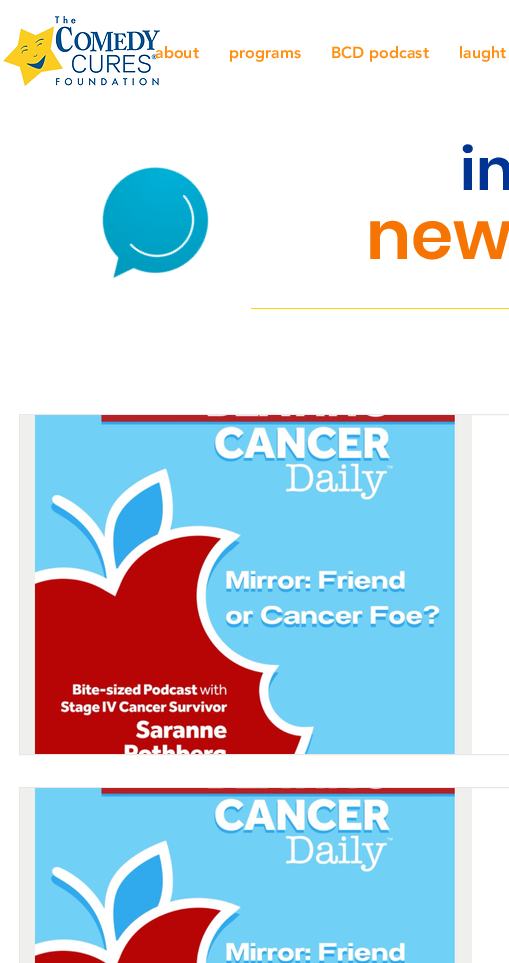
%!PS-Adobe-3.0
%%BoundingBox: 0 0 509 963
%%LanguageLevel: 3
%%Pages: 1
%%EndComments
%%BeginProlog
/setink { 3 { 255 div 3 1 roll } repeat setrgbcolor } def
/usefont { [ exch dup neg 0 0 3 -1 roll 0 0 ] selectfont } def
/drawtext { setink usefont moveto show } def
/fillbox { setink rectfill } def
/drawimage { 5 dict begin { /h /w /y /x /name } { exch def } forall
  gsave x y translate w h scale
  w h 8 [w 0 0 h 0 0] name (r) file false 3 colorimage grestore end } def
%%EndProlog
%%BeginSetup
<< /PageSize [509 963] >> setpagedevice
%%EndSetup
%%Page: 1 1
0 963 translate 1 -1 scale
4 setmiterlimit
0 0 509 963 255 255 255 fillbox
(assets/img1.rgb) 3 16 157 72 drawimage
(about) 155 58 /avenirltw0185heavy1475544-Black 16 255 144 18 drawtext
(programs) 229 58 /avenirltw0185heavy1475544-Black 16 255 144 18 drawtext
(BCD podcast) 331 58 /avenirltw0185heavy1475544-Black 16 255 144 18 drawtext
(laught) 459 58 /avenirltw0185heavy1475544-Black 16 255 144 18 drawtext
(assets/img2.rgb) 102 167 107 111 drawimage
(in) 460 190 /Poppins-SemiBold 58 0 51 146 drawtext
(new) 366 259 /Poppins-SemiBold 68 245 116 2 drawtext
251 308 258 1 255 210 4 fillbox
232 230 230 setink
19.5 414.5 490 340 rectstroke
(assets/img3.rgb) 20 415 452 339 drawimage
19.5 787.5 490 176 rectstroke
(assets/img4.rgb) 20 788 452 175 drawimage
showpage
%%EOF
